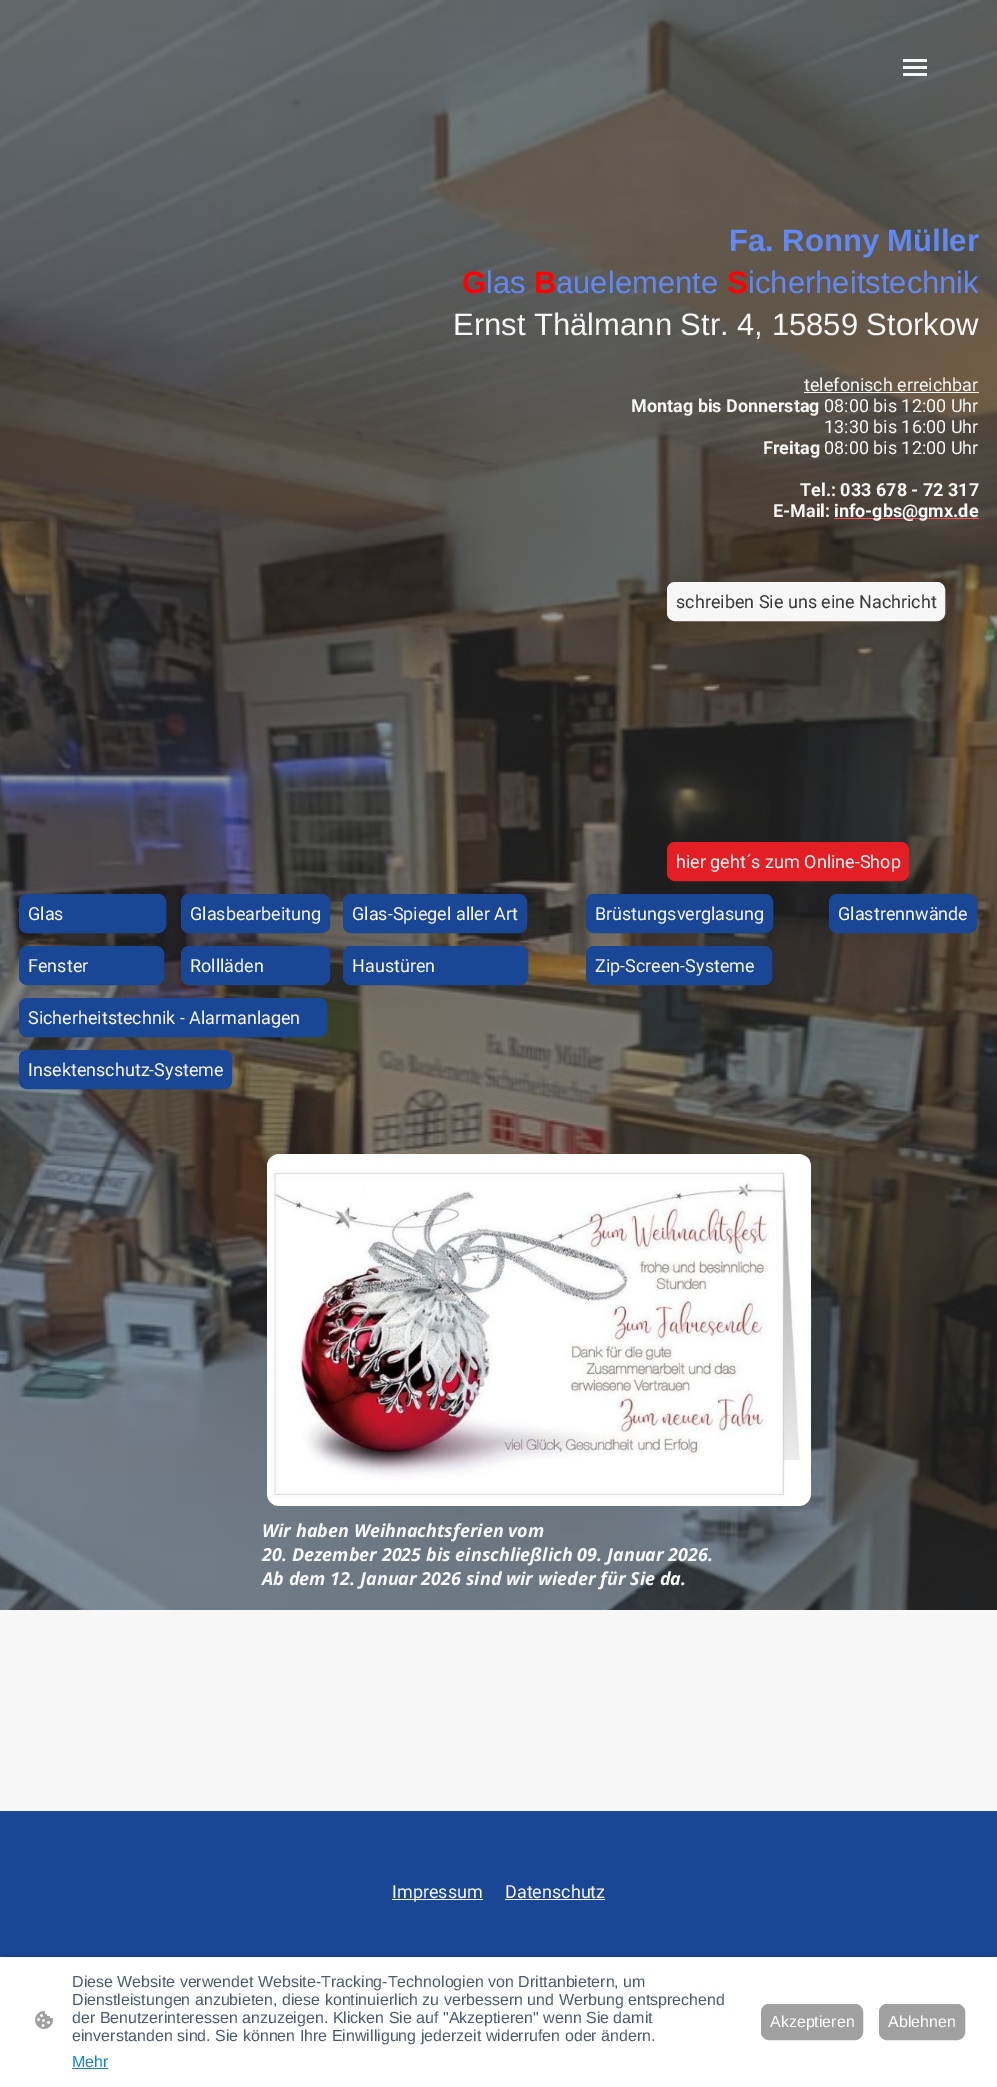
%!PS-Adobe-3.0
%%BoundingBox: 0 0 997 2087
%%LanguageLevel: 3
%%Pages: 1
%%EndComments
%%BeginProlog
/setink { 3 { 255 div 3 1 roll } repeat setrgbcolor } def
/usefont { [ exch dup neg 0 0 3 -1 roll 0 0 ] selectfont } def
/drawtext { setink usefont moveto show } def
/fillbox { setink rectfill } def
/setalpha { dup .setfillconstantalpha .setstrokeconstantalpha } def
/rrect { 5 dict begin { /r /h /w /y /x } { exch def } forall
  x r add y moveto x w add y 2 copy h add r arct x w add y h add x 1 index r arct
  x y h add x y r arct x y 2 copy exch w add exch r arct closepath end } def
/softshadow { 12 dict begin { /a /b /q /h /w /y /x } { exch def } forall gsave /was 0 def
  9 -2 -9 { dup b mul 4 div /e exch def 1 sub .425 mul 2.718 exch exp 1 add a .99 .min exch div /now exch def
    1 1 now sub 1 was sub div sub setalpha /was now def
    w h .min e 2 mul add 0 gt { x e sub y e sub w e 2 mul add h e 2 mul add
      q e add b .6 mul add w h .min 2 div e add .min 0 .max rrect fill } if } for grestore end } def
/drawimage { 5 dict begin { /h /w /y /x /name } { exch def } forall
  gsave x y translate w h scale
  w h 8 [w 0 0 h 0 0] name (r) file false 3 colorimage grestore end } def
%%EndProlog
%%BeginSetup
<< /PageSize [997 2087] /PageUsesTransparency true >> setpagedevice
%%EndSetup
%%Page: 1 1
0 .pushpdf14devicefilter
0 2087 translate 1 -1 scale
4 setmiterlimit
0 0 997 2087 247 247 247 fillbox
(assets/img1.rgb) 0 0 997 1610 drawimage
903 59 24 3 247 247 247 fillbox
903 66 24 3 247 247 247 fillbox
903 73 24 3 247 247 247 fillbox
(Fa. Ronny Müller) 729 251 /LiberationSans-Bold 31 96 137 244 drawtext
(G) 462 293 /LiberationSans-Bold 31 255 0 4 drawtext
(las) 486 293 /LiberationSans-Regular 31 96 137 244 drawtext
(B) 534 293 /LiberationSans-Bold 31 255 0 4 drawtext
(auelemente) 556 293 /LiberationSans-Regular 31 96 137 244 drawtext
(S) 727 293 /LiberationSans-Bold 31 255 0 4 drawtext
(icherheitstechnik) 748 293 /LiberationSans-Regular 31 96 137 244 drawtext
(Ernst Thälmann Str. 4, 15859 Storkow) 453 335 /LiberationSans-Regular 31 247 247 247 drawtext
(telefonisch erreichbar) 804 391 /Roboto-Regular 18 247 247 247 drawtext
804 392 175 1 247 247 247 fillbox
(Montag bis Donnerstag) 631 412 /Roboto-Bold 18 247 247 247 drawtext
(08:00 bis 12:00 Uhr) 824 412 /Roboto-Regular 18 247 247 247 drawtext
(13:30 bis 16:00 Uhr) 824 433 /Roboto-Regular 18 247 247 247 drawtext
(Freitag) 763 454 /Roboto-Bold 18 247 247 247 drawtext
(08:00 bis 12:00 Uhr) 824 454 /Roboto-Regular 18 247 247 247 drawtext
(Tel.: 033 678 - 72 317) 800 496 /Roboto-Bold 18 247 247 247 drawtext
(E-Mail:) 773 517 /Roboto-Bold 18 247 247 247 drawtext
834 518 145 1 249 83 86 fillbox
(info-gbs@gmx.de) 834 517 /Roboto-Bold 18 247 247 247 drawtext
667.5 582.5 277 38 7.5 rrect gsave fill grestore
stroke
(schreiben Sie uns eine Nachricht) 676 608 /Roboto-Regular 18 57 57 57 drawtext
227 30 36 setink
667.5 842.5 241 38 7.5 rrect gsave fill grestore
stroke
(hier geht´s zum Online-Shop) 676 868 /Roboto-Regular 18 247 247 247 drawtext
26 70 150 setink
19.5 894.5 146 38 7.5 rrect gsave fill grestore
stroke
(Glas) 28 920 /Roboto-Regular 18 247 247 247 drawtext
26 70 150 setink
181.5 894.5 148 38 7.5 rrect gsave fill grestore
stroke
(Glasbearbeitung) 190 920 /Roboto-Regular 18 247 247 247 drawtext
26 70 150 setink
343.5 894.5 183 38 7.5 rrect gsave fill grestore
stroke
(Glas-Spiegel aller Art) 352 920 /Roboto-Regular 18 247 247 247 drawtext
26 70 150 setink
586.5 894.5 186 38 7.5 rrect gsave fill grestore
stroke
(Brüstungsverglasung) 595 920 /Roboto-Regular 18 247 247 247 drawtext
26 70 150 setink
829.5 894.5 147 38 7.5 rrect gsave fill grestore
stroke
(Glastrennwände) 838 920 /Roboto-Regular 18 247 247 247 drawtext
26 70 150 setink
19.5 946.5 144 38 7.5 rrect gsave fill grestore
stroke
(Fenster) 28 972 /Roboto-Regular 18 247 247 247 drawtext
26 70 150 setink
181.5 946.5 148 38 7.5 rrect gsave fill grestore
stroke
(Rollläden) 190 972 /Roboto-Regular 18 247 247 247 drawtext
26 70 150 setink
343.5 946.5 184 38 7.5 rrect gsave fill grestore
stroke
(Haustüren) 352 972 /Roboto-Regular 18 247 247 247 drawtext
26 70 150 setink
586.5 946.5 185 38 7.5 rrect gsave fill grestore
stroke
(Zip-Screen-Systeme) 595 972 /Roboto-Regular 18 247 247 247 drawtext
26 70 150 setink
19.5 998.5 307 38 7.5 rrect gsave fill grestore
stroke
(Sicherheitstechnik - Alarmanlagen) 28 1024 /Roboto-Regular 18 247 247 247 drawtext
26 70 150 setink
19.5 1050.5 212 38 7.5 rrect gsave fill grestore
stroke
(Insektenschutz-Systeme) 28 1076 /Roboto-Regular 18 247 247 247 drawtext
(assets/img2.rgb) 267 1154 544 352 drawimage
(Wir haben Weihnachtsferien vom) 262 1537 /NotoSans-BoldItalic 18 247 247 247 drawtext
(20. Dezember 2025 bis einschließlich 09. Januar 2026.) 262 1561 /NotoSans-BoldItalic 18 247 247 247 drawtext
(Ab dem 12. Januar 2026 sind wir wieder für Sie da.) 262 1585 /NotoSans-BoldItalic 18 247 247 247 drawtext
0 1811 997 146 26 70 150 fillbox
392 1899 91 1 247 247 247 fillbox
(Impressum) 392 1898 /Roboto-Regular 18 247 247 247 drawtext
(Datenschutz) 505 1898 /Roboto-Regular 18 247 247 247 drawtext
505 1899 100 1 247 247 247 fillbox
0 0 0 setink
6 1960 985 118 0 4 0.63 softshadow
0 1957 997 130 255 255 255 fillbox
(assets/img3.rgb) 35 2011 18 18 drawimage
(Diese Website verwendet Website-Tracking-Technologien von Drittanbietern, um) 72 1987 /LiberationSans-Regular 16 74 90 115 drawtext
(Dienstleistungen anzubieten, diese kontinuierlich zu verbessern und Werbung entsprechend) 72 2005 /LiberationSans-Regular 16 74 90 115 drawtext
(der Benutzerinteressen anzuzeigen. Klicken Sie auf "Akzeptieren" wenn Sie damit) 72 2023 /LiberationSans-Regular 16 74 90 115 drawtext
(einverstanden sind. Sie können Ihre Einwilligung jederzeit widerrufen oder ändern.) 72 2041 /LiberationSans-Regular 16 74 90 115 drawtext
(Mehr) 72 2067 /LiberationSans-Regular 16 17 131 209 drawtext
72 2068 36 1 17 131 209 fillbox
160 160 160 setink
761.5 2004.5 101 35 7.5 rrect gsave fill grestore
stroke
(Akzeptieren) 770 2027 /LiberationSans-Regular 16 255 255 255 drawtext
160 160 160 setink
879.5 2004.5 85 35 7.5 rrect gsave fill grestore
stroke
(Ablehnen) 888 2027 /LiberationSans-Regular 16 255 255 255 drawtext
.poppdf14devicefilter showpage
%%EOF
